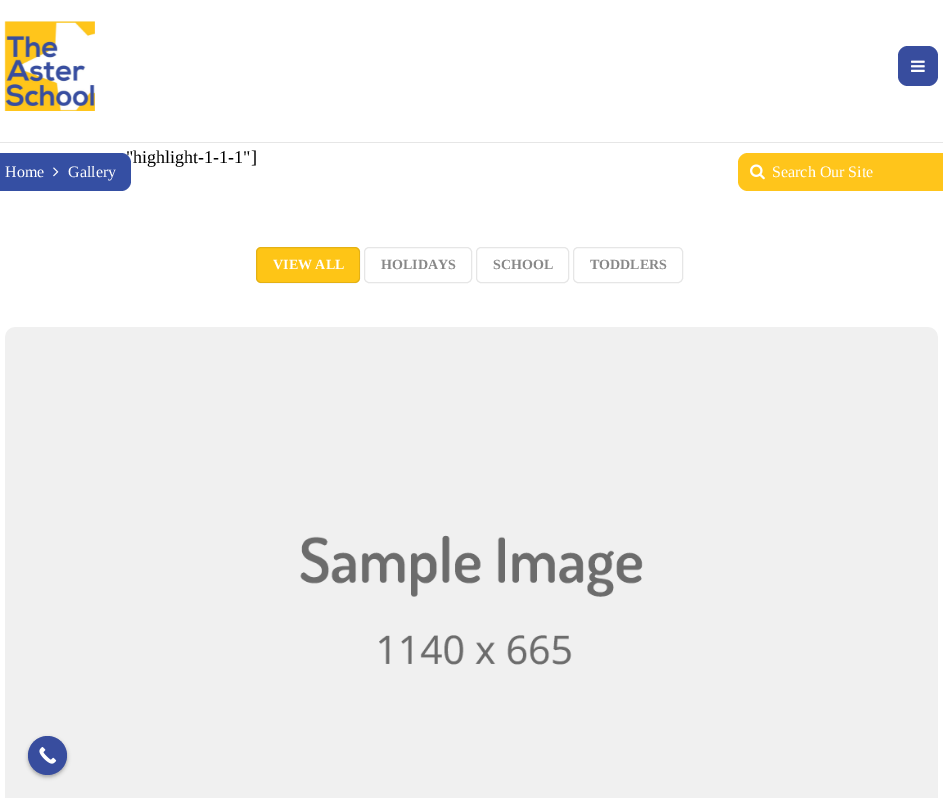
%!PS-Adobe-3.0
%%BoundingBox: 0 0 943 798
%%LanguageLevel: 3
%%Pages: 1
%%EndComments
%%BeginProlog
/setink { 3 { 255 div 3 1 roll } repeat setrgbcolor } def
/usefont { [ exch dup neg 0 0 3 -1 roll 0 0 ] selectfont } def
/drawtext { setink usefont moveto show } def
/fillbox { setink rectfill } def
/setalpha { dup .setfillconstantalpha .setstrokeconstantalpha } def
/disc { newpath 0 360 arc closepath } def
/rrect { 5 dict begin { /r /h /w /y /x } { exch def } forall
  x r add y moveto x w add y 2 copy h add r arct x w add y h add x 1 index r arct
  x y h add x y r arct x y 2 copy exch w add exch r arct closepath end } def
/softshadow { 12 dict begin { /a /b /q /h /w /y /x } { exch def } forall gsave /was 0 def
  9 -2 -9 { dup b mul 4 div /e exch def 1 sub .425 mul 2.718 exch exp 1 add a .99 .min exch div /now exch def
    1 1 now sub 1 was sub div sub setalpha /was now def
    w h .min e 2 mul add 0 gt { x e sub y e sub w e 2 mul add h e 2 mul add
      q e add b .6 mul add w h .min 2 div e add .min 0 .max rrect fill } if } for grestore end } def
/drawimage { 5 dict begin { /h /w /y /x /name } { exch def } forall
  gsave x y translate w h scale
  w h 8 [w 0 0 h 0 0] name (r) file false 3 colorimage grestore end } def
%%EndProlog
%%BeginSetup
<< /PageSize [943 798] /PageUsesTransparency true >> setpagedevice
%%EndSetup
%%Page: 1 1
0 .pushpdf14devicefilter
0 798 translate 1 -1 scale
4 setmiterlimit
0 0 943 798 255 255 255 fillbox
0 142 943 1 230 230 230 fillbox
(assets/img1.rgb) 4 21 91 90 drawimage
56 77 158 setink
898 46 40 40 10 rrect fill
(assets/img2.rgb) 911 60 14 12 drawimage
("highlight-1-1-1"]) 126 163 /LiberationSerif-Regular 18 0 0 0 drawtext
0 153 5 38 53 79 163 fillbox
5 153 moveto 121 153 lineto 126.5 153 131 157.5 131 163 curveto 131 181 lineto 131 186.5 126.5 191 121 191 curveto 5 191 lineto closepath fill
(Home) 5 177 /LiberationSerif-Regular 16 255 255 255 drawtext
(assets/img3.rgb) 53 167 6 10 drawimage
(Gallery) 68 177 /LiberationSerif-Regular 16 255 255 255 drawtext
255 197 27 setink
748 153 moveto 938 153 lineto 938 191 lineto 748 191 lineto 742.5 191 738 186.5 738 181 curveto 738 163 lineto 738 157.5 742.5 153 748 153 curveto closepath fill
(assets/img4.rgb) 750 164 15 16 drawimage
(Search Our Site) 772 177 /LiberationSerif-Regular 16 255 255 255 drawtext
938 153 5 38 255 197 27 fillbox
254 197 22 setink
256 247 104 36 5 rrect fill
0.1 setalpha
0 0 0 setink
256.5 247.5 103 35 4.5 rrect stroke
1 setalpha
(VIEW ALL) 273 269 /LiberationSerif-Bold 14 255 255 255 drawtext
230 230 230 setink
364.5 247.5 107 35 4.5 rrect stroke
(HOLIDAYS) 381 269 /LiberationSerif-Bold 14 136 136 136 drawtext
230 230 230 setink
476.5 247.5 92 35 4.5 rrect stroke
(SCHOOL) 493 269 /LiberationSerif-Bold 14 136 136 136 drawtext
230 230 230 setink
573.5 247.5 109 35 4.5 rrect stroke
(TODDLERS) 590 269 /LiberationSerif-Bold 14 136 136 136 drawtext
(assets/img5.rgb) 5 327 933 471 drawimage
0 0 0 setink
28 738 39 39 19.5 2 0.3 softshadow
56 77 158 setink
47.5 755.5 19.5 disc fill
(assets/img6.rgb) 39 747 18 17 drawimage
.poppdf14devicefilter showpage
%%EOF
